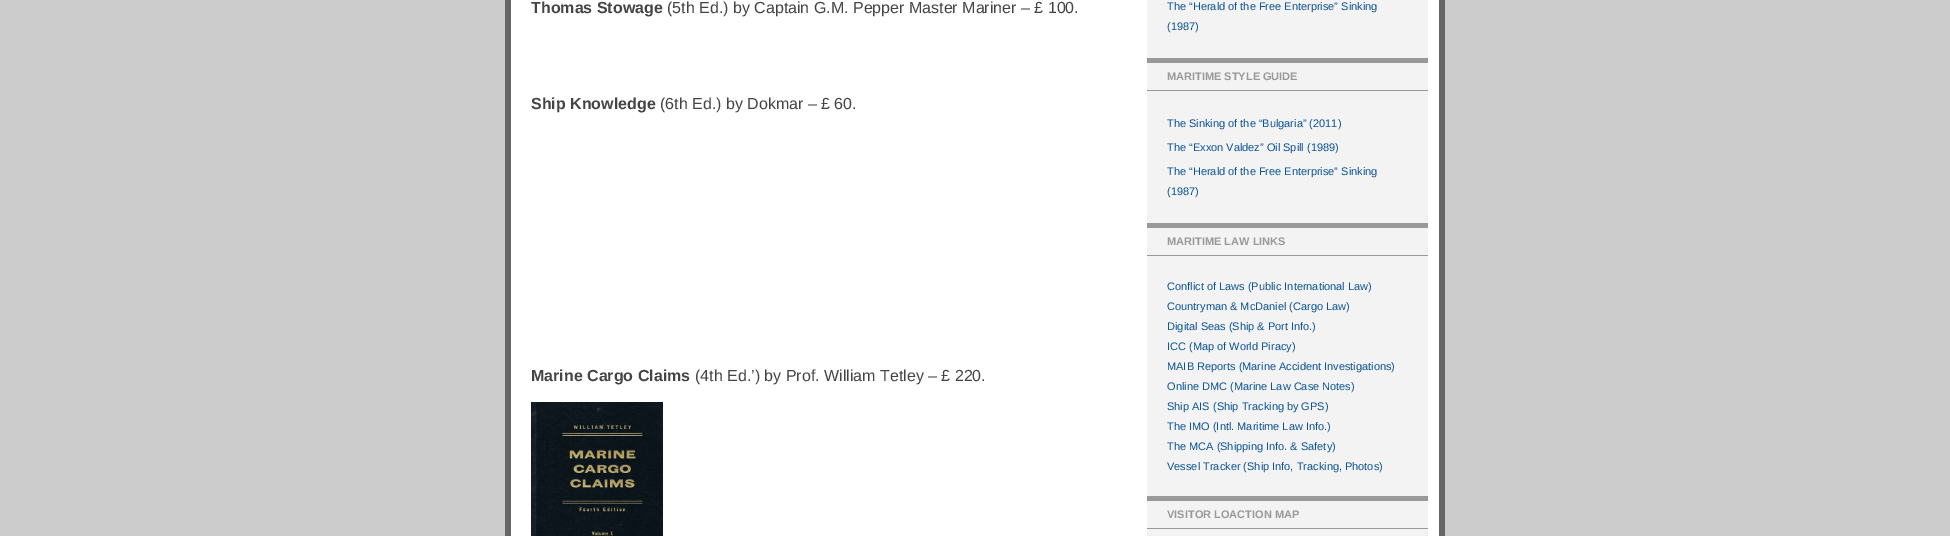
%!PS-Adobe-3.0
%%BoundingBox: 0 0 1950 536
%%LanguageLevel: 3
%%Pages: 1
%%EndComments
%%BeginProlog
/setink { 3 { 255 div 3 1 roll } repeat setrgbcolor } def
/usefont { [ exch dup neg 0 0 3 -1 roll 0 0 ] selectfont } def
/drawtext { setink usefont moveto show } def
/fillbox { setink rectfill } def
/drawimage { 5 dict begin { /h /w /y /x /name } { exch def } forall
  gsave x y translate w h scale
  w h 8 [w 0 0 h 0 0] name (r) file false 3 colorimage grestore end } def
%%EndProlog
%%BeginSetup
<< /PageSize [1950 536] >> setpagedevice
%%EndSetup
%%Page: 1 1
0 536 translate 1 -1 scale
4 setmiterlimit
0 0 1950 536 204 204 204 fillbox
511 0 928 536 255 255 255 fillbox
1439 0 6 536 102 102 102 fillbox
505 0 6 536 102 102 102 fillbox
(Thomas Stowage) 531 13 /LiberationSans-Bold 16 68 68 68 drawtext
(\(5th Ed.\) by Captain G.M. Pepper Master Mariner – £ 100.) 667 13 /LiberationSans-Regular 16 68 68 68 drawtext
(Ship Knowledge) 531 109 /LiberationSans-Bold 16 68 68 68 drawtext
(\(6th Ed.\) by Dokmar – £ 60.) 660 109 /LiberationSans-Regular 16 68 68 68 drawtext
(Marine Cargo Claims) 531 381 /LiberationSans-Bold 16 68 68 68 drawtext
(\(4th Ed.’\) by Prof. William Tetley – £ 220.) 695 381 /LiberationSans-Regular 16 68 68 68 drawtext
(assets/img1.rgb) 531 402 132 134 drawimage
1147 0 281 536 243 243 243 fillbox
(The “Herald of the Free Enterprise” Sinking) 1167 10 /LiberationSans-Regular 11 11 83 148 drawtext
(\(1987\)) 1167 30 /LiberationSans-Regular 11 11 83 148 drawtext
1147 58 281 5 153 153 153 fillbox
1147 90 281 1 153 153 153 fillbox
(MARITIME STYLE GUIDE) 1167 80 /LiberationSans-Bold 11 153 153 153 drawtext
(The Sinking of the “Bulgaria” \(2011\)) 1167 127 /LiberationSans-Regular 11 11 83 148 drawtext
(The “Exxon Valdez” Oil Spill \(1989\)) 1167 151 /LiberationSans-Regular 11 11 83 148 drawtext
(The “Herald of the Free Enterprise” Sinking) 1167 175 /LiberationSans-Regular 11 11 83 148 drawtext
(\(1987\)) 1167 195 /LiberationSans-Regular 11 11 83 148 drawtext
1147 223 281 5 153 153 153 fillbox
1147 255 281 1 153 153 153 fillbox
(MARITIME LAW LINKS) 1167 245 /LiberationSans-Bold 11 153 153 153 drawtext
(Conflict of Laws \(Public International Law\)) 1167 290 /LiberationSans-Regular 11 11 83 148 drawtext
(Countryman & McDaniel \(Cargo Law\)) 1167 310 /LiberationSans-Regular 11 11 83 148 drawtext
(Digital Seas \(Ship & Port Info.\)) 1167 330 /LiberationSans-Regular 11 11 83 148 drawtext
(ICC \(Map of World Piracy\)) 1167 350 /LiberationSans-Regular 11 11 83 148 drawtext
(MAIB Reports \(Marine Accident Investigations\)) 1167 370 /LiberationSans-Regular 11 11 83 148 drawtext
(Online DMC \(Marine Law Case Notes\)) 1167 390 /LiberationSans-Regular 11 11 83 148 drawtext
(Ship AIS \(Ship Tracking by GPS\)) 1167 410 /LiberationSans-Regular 11 11 83 148 drawtext
(The IMO \(Intl. Maritime Law Info.\)) 1167 430 /LiberationSans-Regular 11 11 83 148 drawtext
(The MCA \(Shipping Info. & Safety\)) 1167 450 /LiberationSans-Regular 11 11 83 148 drawtext
(Vessel Tracker \(Ship Info, Tracking, Photos\)) 1167 470 /LiberationSans-Regular 11 11 83 148 drawtext
1147 496 281 5 153 153 153 fillbox
1147 528 281 1 153 153 153 fillbox
(VISITOR LOACTION MAP) 1167 518 /LiberationSans-Bold 11 153 153 153 drawtext
showpage
%%EOF
